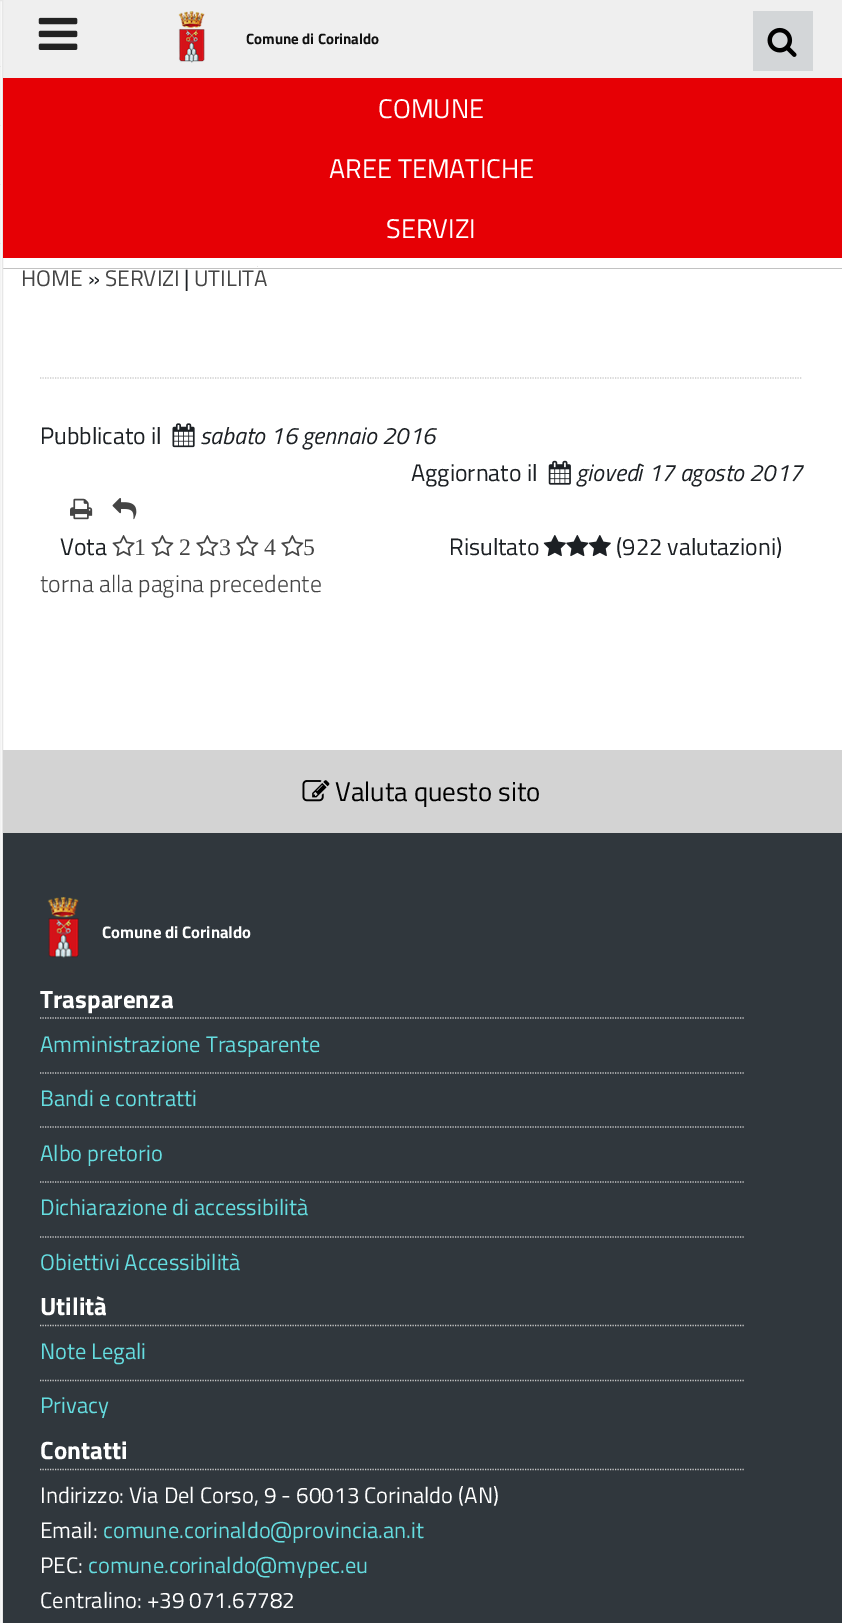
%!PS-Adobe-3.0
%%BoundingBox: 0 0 842 1623
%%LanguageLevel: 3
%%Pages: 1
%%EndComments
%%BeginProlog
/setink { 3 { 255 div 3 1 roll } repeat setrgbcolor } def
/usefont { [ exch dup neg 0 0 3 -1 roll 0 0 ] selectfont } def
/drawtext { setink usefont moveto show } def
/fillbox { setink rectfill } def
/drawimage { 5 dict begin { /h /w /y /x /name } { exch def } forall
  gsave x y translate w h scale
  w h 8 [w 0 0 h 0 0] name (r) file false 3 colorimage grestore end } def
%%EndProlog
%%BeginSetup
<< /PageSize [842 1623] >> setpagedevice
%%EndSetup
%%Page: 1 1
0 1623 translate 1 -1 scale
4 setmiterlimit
0 0 842 1623 255 255 255 fillbox
(UTILITÀ) 194 286 /TitilliumWeb-Regular 22.5 69 69 69 drawtext
258 265 6 3 255 255 255 fillbox
0 268 842 1 194 194 194 fillbox
3 0 839 78 239 239 239 fillbox
248 248 248 setink
-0.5 0.5 moveto 2.5 0.5 lineto 2.5 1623.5 lineto -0.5 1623.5 lineto closepath gsave fill grestore
231 231 231 setink
stroke
0 66 1 1 231 231 231 fillbox
0 125 1 1 231 231 231 fillbox
0 184 1 1 231 231 231 fillbox
0 243 1 1 231 231 231 fillbox
(assets/img1.rgb) 38 17 40 33 drawimage
(assets/img2.rgb) 178 11 27 52 drawimage
(Comune di Corinaldo) 246 44 /TitilliumWeb-Bold 15 17 17 17 drawtext
753 11 60 60 211 214 216 fillbox
(assets/img3.rgb) 767 27 30 30 drawimage
3 78 839 180 230 0 5 fillbox
(COMUNE) 378 118 /TitilliumWeb-Regular 27 255 255 255 drawtext
(AREE TEMATICHE) 329 178 /TitilliumWeb-Regular 27 255 255 255 drawtext
(SERVIZI) 386 238 /TitilliumWeb-Regular 27 255 255 255 drawtext
(HOME) 21 286 /TitilliumWeb-Regular 22.5 69 69 69 drawtext
(») 88 286 /TitilliumWeb-Regular 22.5 28 32 36 drawtext
(SERVIZI) 105 286 /TitilliumWeb-Regular 22.5 69 69 69 drawtext
(|) 184 286 /TitilliumWeb-Regular 22.5 28 32 36 drawtext
204 204 204 setink
1.2 setlinewidth
[1.25 1.25] 0 setdash
40 378 moveto 802.5 378 lineto stroke
(Pubblicato il) 40 444 /TitilliumWeb-Regular 23.8 28 32 36 drawtext
(assets/img4.rgb) 172 423 23 25 drawimage
(sabato 16 gennaio 2016) 200 444 /TitilliumWeb-Italic 23.8 28 32 36 drawtext
(Aggiornato il) 411 481 /TitilliumWeb-Regular 23.8 28 32 36 drawtext
(assets/img5.rgb) 548 460 23 25 drawimage
(giovedì 17 agosto 2017) 576 481 /TitilliumWeb-Italic 23.8 28 32 36 drawtext
(assets/img6.rgb) 70 498 23 22 drawimage
(assets/img7.rgb) 112 498 25 22 drawimage
(Vota) 60 555 /TitilliumWeb-Regular 23.8 28 32 36 drawtext
(assets/img8.rgb) 112 535 23 22 drawimage
(1) 134 555 /LiberationSerif-Regular 23.8 69 69 69 drawtext
(assets/img9.rgb) 151 535 23 22 drawimage
(2) 179 555 /LiberationSerif-Regular 23.8 69 69 69 drawtext
(assets/img9.rgb) 196 535 23 22 drawimage
(3) 219 555 /LiberationSerif-Regular 23.8 69 69 69 drawtext
(assets/img9.rgb) 236 535 23 22 drawimage
(4) 264 555 /LiberationSerif-Regular 23.8 69 69 69 drawtext
(assets/img9.rgb) 281 535 23 22 drawimage
(5) 303 555 /LiberationSerif-Regular 23.8 69 69 69 drawtext
(Risultato) 449 555 /TitilliumWeb-Regular 23.8 28 32 36 drawtext
(assets/img10.rgb) 543 535 23 22 drawimage
(assets/img11.rgb) 566 535 23 22 drawimage
(assets/img12.rgb) 588 535 23 22 drawimage
(\(922 valutazioni\)) 616 555 /TitilliumWeb-Regular 23.8 28 32 36 drawtext
(torna alla pagina precedente) 40 592 /TitilliumWeb-Light 23.8 69 69 69 drawtext
3 750 839 83 211 211 211 fillbox
(assets/img13.rgb) 302 780 28 22 drawimage
(Valuta questo sito) 335 801 /TitilliumWeb-Regular 27 0 0 0 drawtext
3 833 839 790 48 55 61 fillbox
(assets/img14.rgb) 47 897 32 61 drawimage
(Comune di Corinaldo) 102 938 /TitilliumWeb-Bold 16.75 255 255 255 drawtext
(Trasparenza) 40 1008 /TitilliumWeb-Bold 25 255 255 255 drawtext
200 200 200 setink
40 1018 moveto 745 1018 lineto stroke
(Amministrazione Trasparente) 40 1052 /TitilliumWeb-Regular 22.5 101 221 224 drawtext
200 200 200 setink
40 1073 moveto 745 1073 lineto stroke
(Bandi e contratti) 40 1106 /TitilliumWeb-Regular 22.5 101 221 224 drawtext
200 200 200 setink
40 1127 moveto 745 1127 lineto stroke
(Albo pretorio) 40 1161 /TitilliumWeb-Regular 22.5 101 221 224 drawtext
200 200 200 setink
40 1182 moveto 745 1182 lineto stroke
(Dichiarazione di accessibilità) 40 1215 /TitilliumWeb-Regular 22.5 101 221 224 drawtext
200 200 200 setink
40 1237 moveto 745 1237 lineto stroke
(Obiettivi Accessibilità) 40 1270 /TitilliumWeb-Regular 22.5 101 221 224 drawtext
(Utilità) 40 1315 /TitilliumWeb-Bold 25 255 255 255 drawtext
200 200 200 setink
40 1325.5 moveto 745 1325.5 lineto stroke
(Note Legali) 40 1359 /TitilliumWeb-Regular 22.5 101 221 224 drawtext
200 200 200 setink
40 1380.5 moveto 745 1380.5 lineto stroke
(Privacy) 40 1413 /TitilliumWeb-Regular 22.5 101 221 224 drawtext
(Contatti) 40 1459 /TitilliumWeb-Bold 25 255 255 255 drawtext
200 200 200 setink
40 1469.5 moveto 745 1469.5 lineto stroke
(Indirizzo: Via Del Corso, 9 - 60013 Corinaldo \(AN\)) 40 1503 /TitilliumWeb-Regular 22.5 255 255 255 drawtext
(Email:) 40 1538 /TitilliumWeb-Regular 22.5 255 255 255 drawtext
(comune.corinaldo@provincia.an.it) 103 1538 /TitilliumWeb-Regular 22.5 101 221 224 drawtext
(PEC:) 40 1573 /TitilliumWeb-Regular 22.5 255 255 255 drawtext
(comune.corinaldo@mypec.eu) 88 1573 /TitilliumWeb-Regular 22.5 101 221 224 drawtext
(Centralino: +39 071.67782) 40 1608 /TitilliumWeb-Regular 22.5 255 255 255 drawtext
showpage
%%EOF
